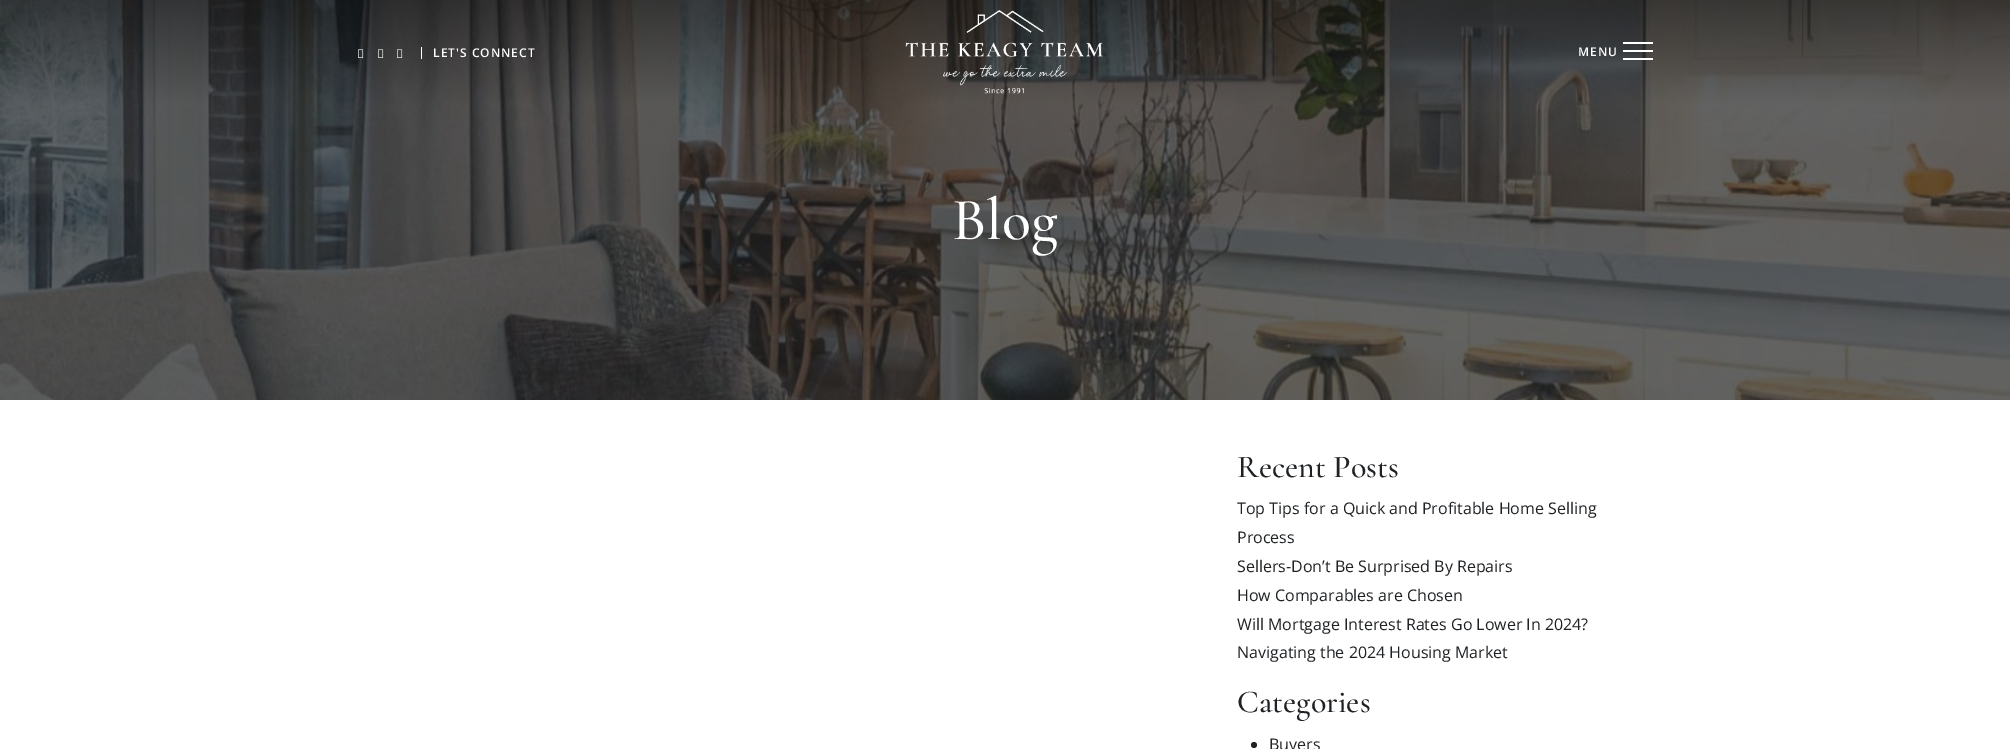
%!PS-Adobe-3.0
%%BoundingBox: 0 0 2010 749
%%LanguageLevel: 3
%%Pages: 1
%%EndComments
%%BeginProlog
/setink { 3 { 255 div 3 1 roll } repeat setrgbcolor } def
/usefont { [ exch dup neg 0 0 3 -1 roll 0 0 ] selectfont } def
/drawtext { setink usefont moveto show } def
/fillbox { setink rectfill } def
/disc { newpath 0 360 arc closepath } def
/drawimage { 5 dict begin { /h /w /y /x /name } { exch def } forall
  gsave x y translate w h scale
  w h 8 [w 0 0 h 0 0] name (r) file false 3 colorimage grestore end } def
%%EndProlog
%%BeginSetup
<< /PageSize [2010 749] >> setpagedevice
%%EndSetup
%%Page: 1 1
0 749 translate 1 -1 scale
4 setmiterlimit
0 0 2010 749 255 255 255 fillbox
(assets/img5.rgb) 0 0 2010 400 drawimage
(assets/img1.rgb) 358 49 6 9 drawimage
(assets/img2.rgb) 378 49 6 9 drawimage
(assets/img3.rgb) 397 49 6 9 drawimage
421 47 1 12 255 255 255 fillbox
/OpenSans-SemiBold 12 usefont
433 57 moveto 1 0 (LET'S CONNECT) ashow
(assets/img4.rgb) 905 10 198 84 drawimage
1578 56 moveto 1 0 (MENU) ashow
1623 42 30 2 255 255 255 fillbox
1623 50 30 2 255 255 255 fillbox
1623 58 30 2 255 255 255 fillbox
(Blog) 952 239 /CormorantGaramond-Medium 60 255 255 255 drawtext
(Recent Posts) 1237 477 /CormorantGaramond-Medium 32 31 34 36 drawtext
(Top Tips for a Quick and Profitable Home Selling) 1237 514 /OpenSans-Regular 16 31 34 36 drawtext
(Process) 1237 543 /OpenSans-Regular 16 31 34 36 drawtext
(Sellers-Don’t Be Surprised By Repairs) 1237 572 /OpenSans-Regular 16 31 34 36 drawtext
(How Comparables are Chosen) 1237 601 /OpenSans-Regular 16 31 34 36 drawtext
(Will Mortgage Interest Rates Go Lower In 2024?) 1237 630 /OpenSans-Regular 16 31 34 36 drawtext
(Navigating the 2024 Housing Market) 1237 658 /OpenSans-Regular 16 31 34 36 drawtext
(Categories) 1237 712 /CormorantGaramond-Medium 32 31 34 36 drawtext
1254 745 3 disc fill
(Buyers) 1269 750 /OpenSans-Regular 16 31 34 36 drawtext
showpage
%%EOF
